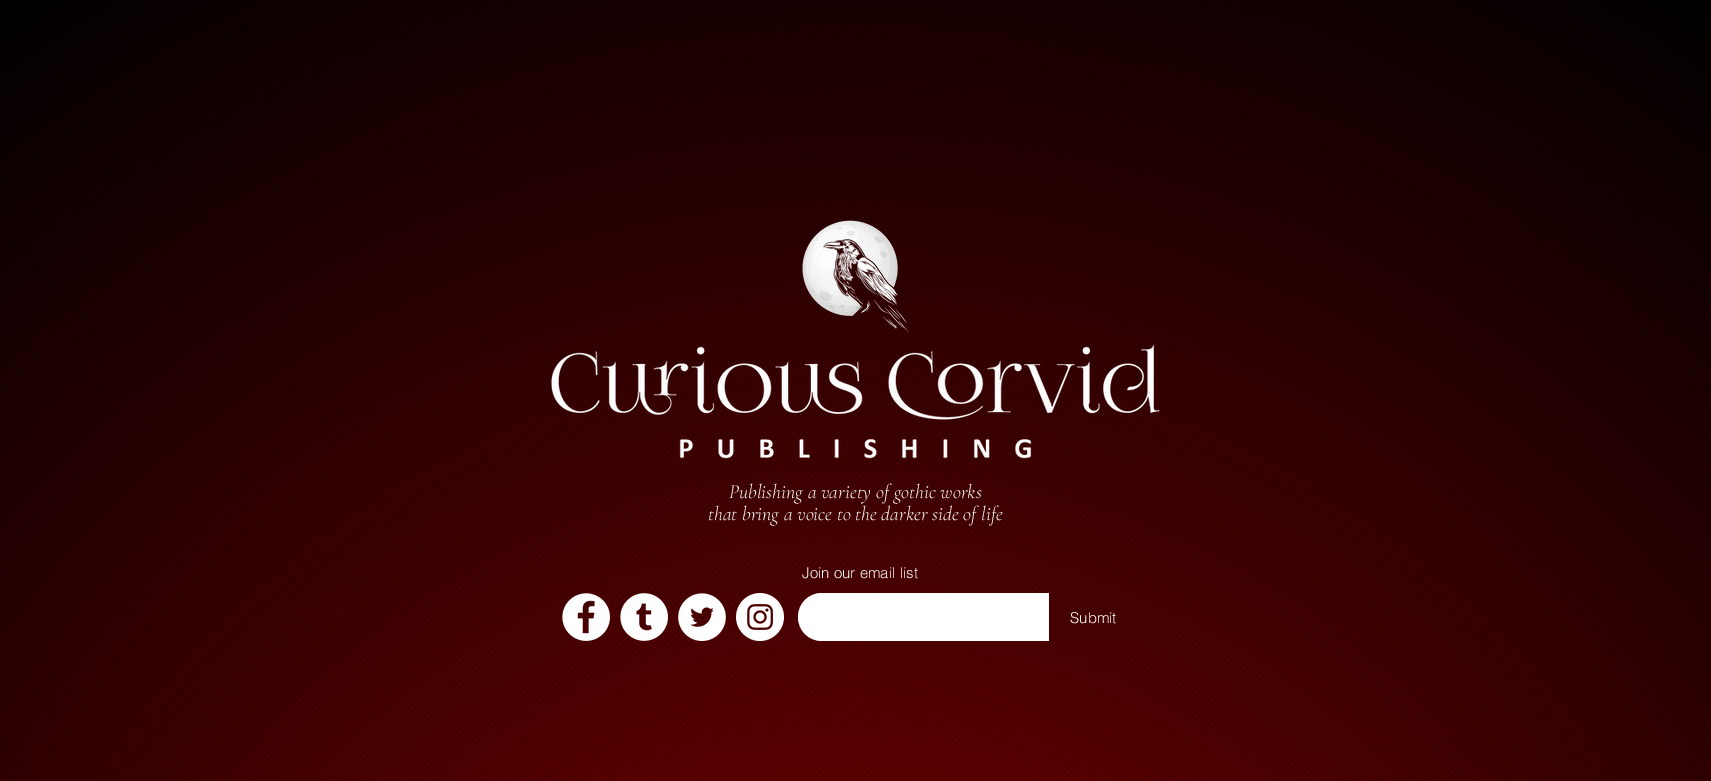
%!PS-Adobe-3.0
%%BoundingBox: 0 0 1711 781
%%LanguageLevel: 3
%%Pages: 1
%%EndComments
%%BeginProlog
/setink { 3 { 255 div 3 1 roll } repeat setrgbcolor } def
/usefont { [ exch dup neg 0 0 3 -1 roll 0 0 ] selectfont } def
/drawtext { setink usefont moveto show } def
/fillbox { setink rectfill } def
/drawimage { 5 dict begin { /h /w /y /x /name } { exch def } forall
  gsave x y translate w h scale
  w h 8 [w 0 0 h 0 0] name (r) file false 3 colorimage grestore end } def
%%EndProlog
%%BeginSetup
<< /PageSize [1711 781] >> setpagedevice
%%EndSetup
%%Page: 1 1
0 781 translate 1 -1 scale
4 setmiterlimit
0 0 1711 781 255 255 255 fillbox
gsave 0 0 moveto 1711 0 lineto 1711 781 lineto 0 781 lineto closepath clip newpath 856 1261 translate 1524 1524 scale
<< /ShadingType 3 /ColorSpace /DeviceRGB /Coords [0 0 0 0 0 1] /Extend [true true] /Function << /FunctionType 2 /Domain [0 1] /C0 [0.533 0 0] /C1 [0 0 0] /N 1 >> >> shfill grestore
(assets/img1.rgb) 0 0 1711 781 drawimage
(assets/img2.rgb) 802 220 107 112 drawimage
(assets/img3.rgb) 551 344 609 115 drawimage
(Publishing a variety of gothic works) 729 498 /CormorantGaramond-LightItalic 20 255 255 255 drawtext
(that bring a voice to the darker side of life) 708 520 /CormorantGaramond-LightItalic 20 255 255 255 drawtext
(assets/img4.rgb) 562 593 48 48 drawimage
(assets/img5.rgb) 620 593 48 48 drawimage
(assets/img6.rgb) 678 593 48 48 drawimage
(assets/img7.rgb) 736 593 48 48 drawimage
(Join our email list) 802 578 /helvetica-Light 15 255 255 255 drawtext
822 593 moveto 1049 593 lineto 1049 641 lineto 822 641 lineto 808.5 641 798 630.5 798 617 curveto 798 603.5 808.5 593 822 593 curveto closepath fill
69 0 0 setink
1049 593 moveto 1114 593 lineto 1127.5 593 1138 603.5 1138 617 curveto 1138 630.5 1127.5 641 1114 641 curveto 1049 641 lineto closepath fill
(Submit) 1070 623 /helvetica-Light 15 255 255 255 drawtext
showpage
%%EOF
